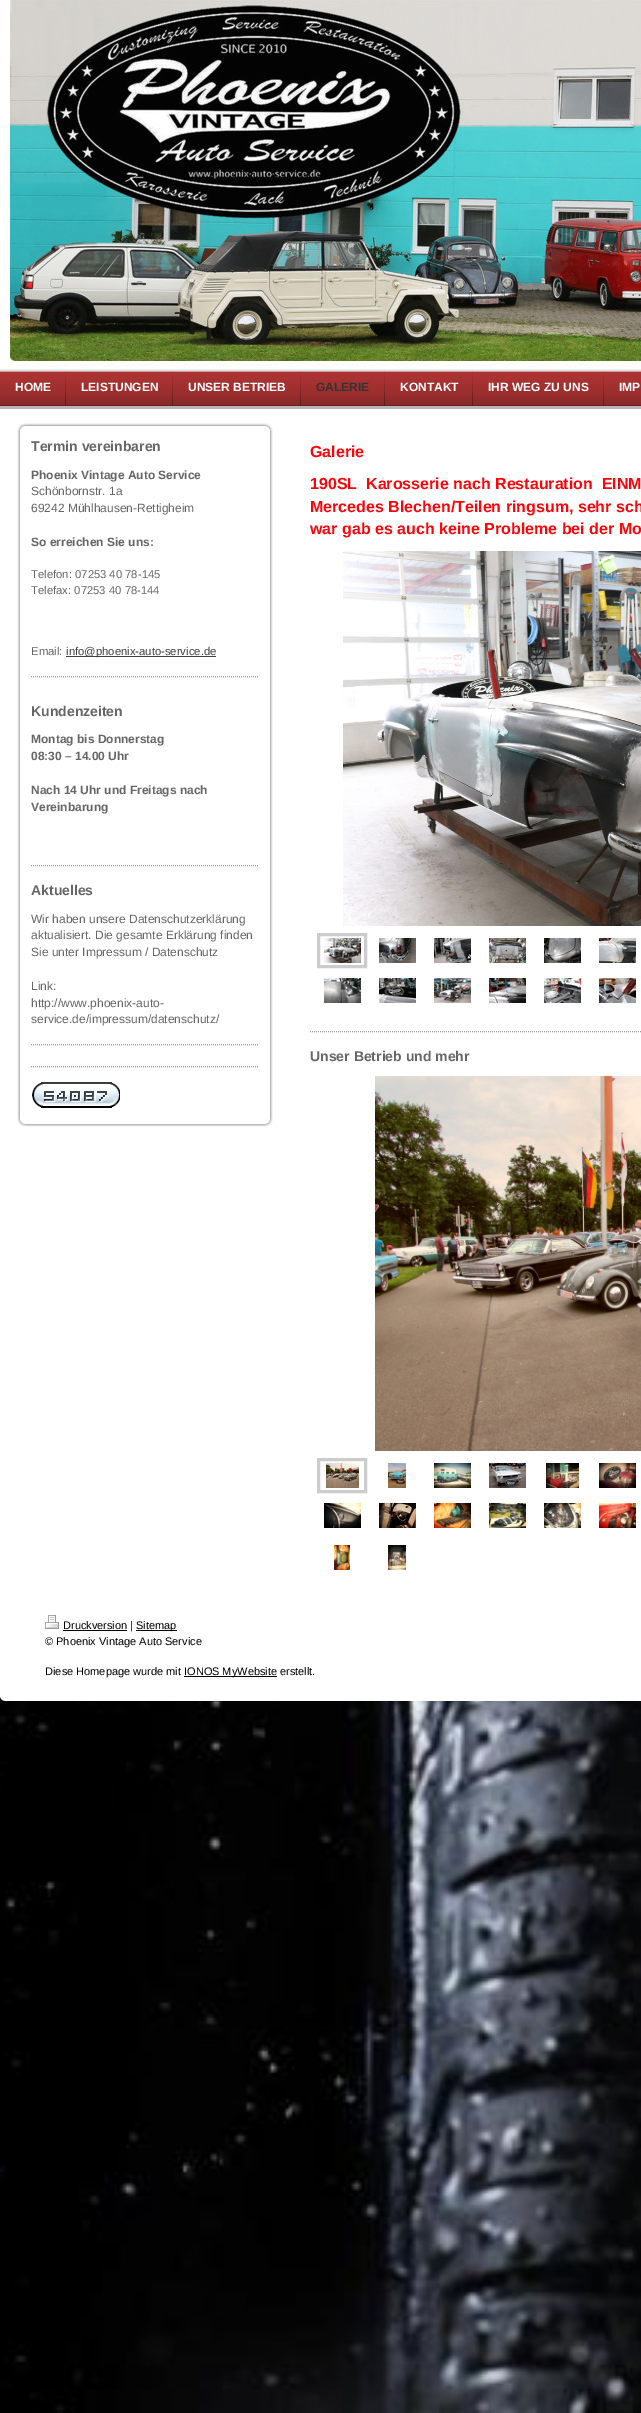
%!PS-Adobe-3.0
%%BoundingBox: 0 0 641 2413
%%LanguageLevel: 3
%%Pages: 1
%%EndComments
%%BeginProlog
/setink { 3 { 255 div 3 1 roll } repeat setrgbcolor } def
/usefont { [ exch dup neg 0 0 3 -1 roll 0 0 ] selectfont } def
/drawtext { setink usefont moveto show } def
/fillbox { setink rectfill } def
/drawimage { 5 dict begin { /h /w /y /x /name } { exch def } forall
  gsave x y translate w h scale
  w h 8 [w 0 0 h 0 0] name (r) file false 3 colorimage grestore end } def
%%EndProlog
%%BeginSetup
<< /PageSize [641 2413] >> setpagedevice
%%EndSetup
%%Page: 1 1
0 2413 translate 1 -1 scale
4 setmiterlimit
0 0 641 2413 255 255 255 fillbox
(assets/img1.rgb) 0 1696 641 717 drawimage
(assets/img2.rgb) 10 0 631 361 drawimage
(assets/img3.rgb) 10 356 5 5 drawimage
(assets/img4.rgb) 0 369 641 2 drawimage
0 371 641 35 173 51 51 fillbox
(assets/img5.rgb) 0 371 641 35 drawimage
(assets/img6.rgb) 65 371 1 35 drawimage
(HOME) 15 391 /LiberationSans-Bold 12 255 255 255 drawtext
(assets/img6.rgb) 172 371 1 35 drawimage
(LEISTUNGEN) 81 391 /LiberationSans-Bold 12 255 255 255 drawtext
(assets/img6.rgb) 300 371 1 35 drawimage
(UNSER BETRIEB) 188 391 /LiberationSans-Bold 12 255 255 255 drawtext
(assets/img6.rgb) 384 371 1 35 drawimage
(GALERIE) 316 391 /LiberationSans-Bold 12 51 51 51 drawtext
(assets/img6.rgb) 472 371 1 35 drawimage
(KONTAKT) 400 391 /LiberationSans-Bold 12 255 255 255 drawtext
(assets/img6.rgb) 603 371 1 35 drawimage
(IHR WEG ZU UNS) 488 391 /LiberationSans-Bold 12 255 255 255 drawtext
(IMP) 619 391 /LiberationSans-Bold 12 255 255 255 drawtext
0 406 641 3 183 183 183 fillbox
(assets/img7.rgb) 17 423 256 9 drawimage
(assets/img8.rgb) 17 432 256 686 drawimage
(Termin vereinbaren) 31 451 /LiberationSans-Bold 14 102 102 102 drawtext
(Phoenix Vintage Auto Service) 31 479 /LiberationSans-Bold 12 102 102 102 drawtext
(Schönbornstr. 1a) 31 495 /LiberationSans-Regular 12 102 102 102 drawtext
(69242 Mühlhausen-Rettigheim) 31 512 /LiberationSans-Regular 12 102 102 102 drawtext
(So erreichen Sie uns:) 31 546 /LiberationSans-Bold 12 102 102 102 drawtext
(Telefon: 07253 40 78-145) 31 578 /LiberationSans-Regular 11.3 102 102 102 drawtext
(Telefax: 07253 40 78-144) 31 594 /LiberationSans-Regular 11.3 102 102 102 drawtext
(Email:) 31 655 /LiberationSans-Regular 11.3 102 102 102 drawtext
66 656 150 1 64 64 64 fillbox
(info@phoenix-auto-service.de) 66 655 /LiberationSans-Regular 11.3 64 64 64 drawtext
153 153 153 setink
[1 1] 0 setdash
31 676.5 moveto 259 676.5 lineto stroke
(Kundenzeiten) 31 716 /LiberationSans-Bold 14 102 102 102 drawtext
(Montag bis Donnerstag) 31 743 /LiberationSans-Bold 12 102 102 102 drawtext
(08:30 – 14.00 Uhr) 31 760 /LiberationSans-Bold 12 102 102 102 drawtext
(Nach 14 Uhr und Freitags nach) 31 794 /LiberationSans-Bold 12 102 102 102 drawtext
(Vereinbarung) 31 811 /LiberationSans-Bold 12 102 102 102 drawtext
153 153 153 setink
31 865.5 moveto 259 865.5 lineto stroke
(Aktuelles) 31 895 /LiberationSans-Bold 14 102 102 102 drawtext
(Wir haben unsere Datenschutzerklärung) 31 923 /LiberationSans-Regular 12 102 102 102 drawtext
(aktualisiert. Die gesamte Erklärung finden) 31 939 /LiberationSans-Regular 12 102 102 102 drawtext
(Sie unter Impressum / Datenschutz) 31 956 /LiberationSans-Regular 12 102 102 102 drawtext
(Link:) 31 990 /LiberationSans-Regular 12 102 102 102 drawtext
(http://www.phoenix-auto-) 31 1007 /LiberationSans-Regular 12 102 102 102 drawtext
(service.de/impressum/datenschutz/) 31 1023 /LiberationSans-Regular 12 102 102 102 drawtext
153 153 153 setink
31 1044.5 moveto 259 1044.5 lineto stroke
31 1066.5 moveto 259 1066.5 lineto stroke
(assets/img9.rgb) 32 1082 11 26 drawimage
(assets/img10.rgb) 43 1082 13 26 drawimage
(assets/img11.rgb) 56 1082 13 26 drawimage
(assets/img12.rgb) 69 1082 14 26 drawimage
(assets/img13.rgb) 83 1082 13 26 drawimage
(assets/img14.rgb) 96 1082 13 26 drawimage
(assets/img15.rgb) 109 1082 11 26 drawimage
(assets/img16.rgb) 17 1118 256 9 drawimage
(Galerie) 310 457 /LiberationSans-Bold 16 253 4 10 drawtext
(190SL  Karosserie nach Restauration  EINM) 310 489 /LiberationSans-Bold 16 253 4 10 drawtext
(Mercedes Blechen/Teilen ringsum, sehr sch) 310 512 /LiberationSans-Bold 16 253 4 10 drawtext
(war gab es auch keine Probleme bei der Mo) 310 534 /LiberationSans-Bold 16 253 4 10 drawtext
(assets/img17.rgb) 343 551 298 375 drawimage
204 204 204 setink
3 setlinewidth
[] 0 setdash
318.5 934.5 47 32 rectstroke
(assets/img18.rgb) 324 938 37 25 drawimage
(assets/img19.rgb) 379 938 37 25 drawimage
(assets/img20.rgb) 434 938 37 25 drawimage
(assets/img21.rgb) 489 938 37 25 drawimage
(assets/img22.rgb) 544 938 37 25 drawimage
(assets/img23.rgb) 599 938 37 25 drawimage
(assets/img24.rgb) 324 978 37 25 drawimage
(assets/img25.rgb) 379 978 37 25 drawimage
(assets/img26.rgb) 434 978 37 25 drawimage
(assets/img27.rgb) 489 978 37 25 drawimage
(assets/img28.rgb) 544 978 37 25 drawimage
(assets/img29.rgb) 599 978 37 25 drawimage
153 153 153 setink
1 setlinewidth
[1 1] 0 setdash
310 1031.5 moveto 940 1031.5 lineto stroke
(Unser Betrieb und mehr) 310 1061 /LiberationSans-Bold 14 102 102 102 drawtext
(assets/img30.rgb) 375 1076 266 375 drawimage
204 204 204 setink
3 setlinewidth
[] 0 setdash
318.5 1459.5 47 32 rectstroke
(assets/img31.rgb) 326 1463 33 25 drawimage
(assets/img32.rgb) 388 1463 18 25 drawimage
(assets/img33.rgb) 434 1463 37 25 drawimage
(assets/img34.rgb) 489 1463 37 25 drawimage
(assets/img35.rgb) 546 1463 33 25 drawimage
(assets/img36.rgb) 599 1463 37 25 drawimage
(assets/img37.rgb) 324 1503 37 25 drawimage
(assets/img38.rgb) 379 1503 37 25 drawimage
(assets/img39.rgb) 434 1503 37 25 drawimage
(assets/img40.rgb) 489 1503 37 25 drawimage
(assets/img41.rgb) 544 1503 37 25 drawimage
(assets/img42.rgb) 599 1503 37 25 drawimage
(assets/img43.rgb) 334 1545 16 25 drawimage
(assets/img44.rgb) 388 1545 18 25 drawimage
(assets/img45.rgb) 45 1615 14 14 drawimage
63 1630 64 1 0 0 0 fillbox
(Druckversion |) 63 1629 /LiberationSans-Regular 11 0 0 0 drawtext
136 1630 41 1 0 0 0 fillbox
(Sitemap) 136 1629 /LiberationSans-Regular 11 0 0 0 drawtext
(© Phoenix Vintage Auto Service) 45 1645 /LiberationSans-Regular 11 0 0 0 drawtext
(Diese Homepage wurde mit) 45 1675 /LiberationSans-Regular 11 0 0 0 drawtext
184 1676 93 1 0 0 0 fillbox
(IONOS MyWebsite erstellt.) 184 1675 /LiberationSans-Regular 11 0 0 0 drawtext
(assets/img46.rgb) 0 1695 6 6 drawimage
6 1696 635 5 255 255 255 fillbox
showpage
%%EOF
